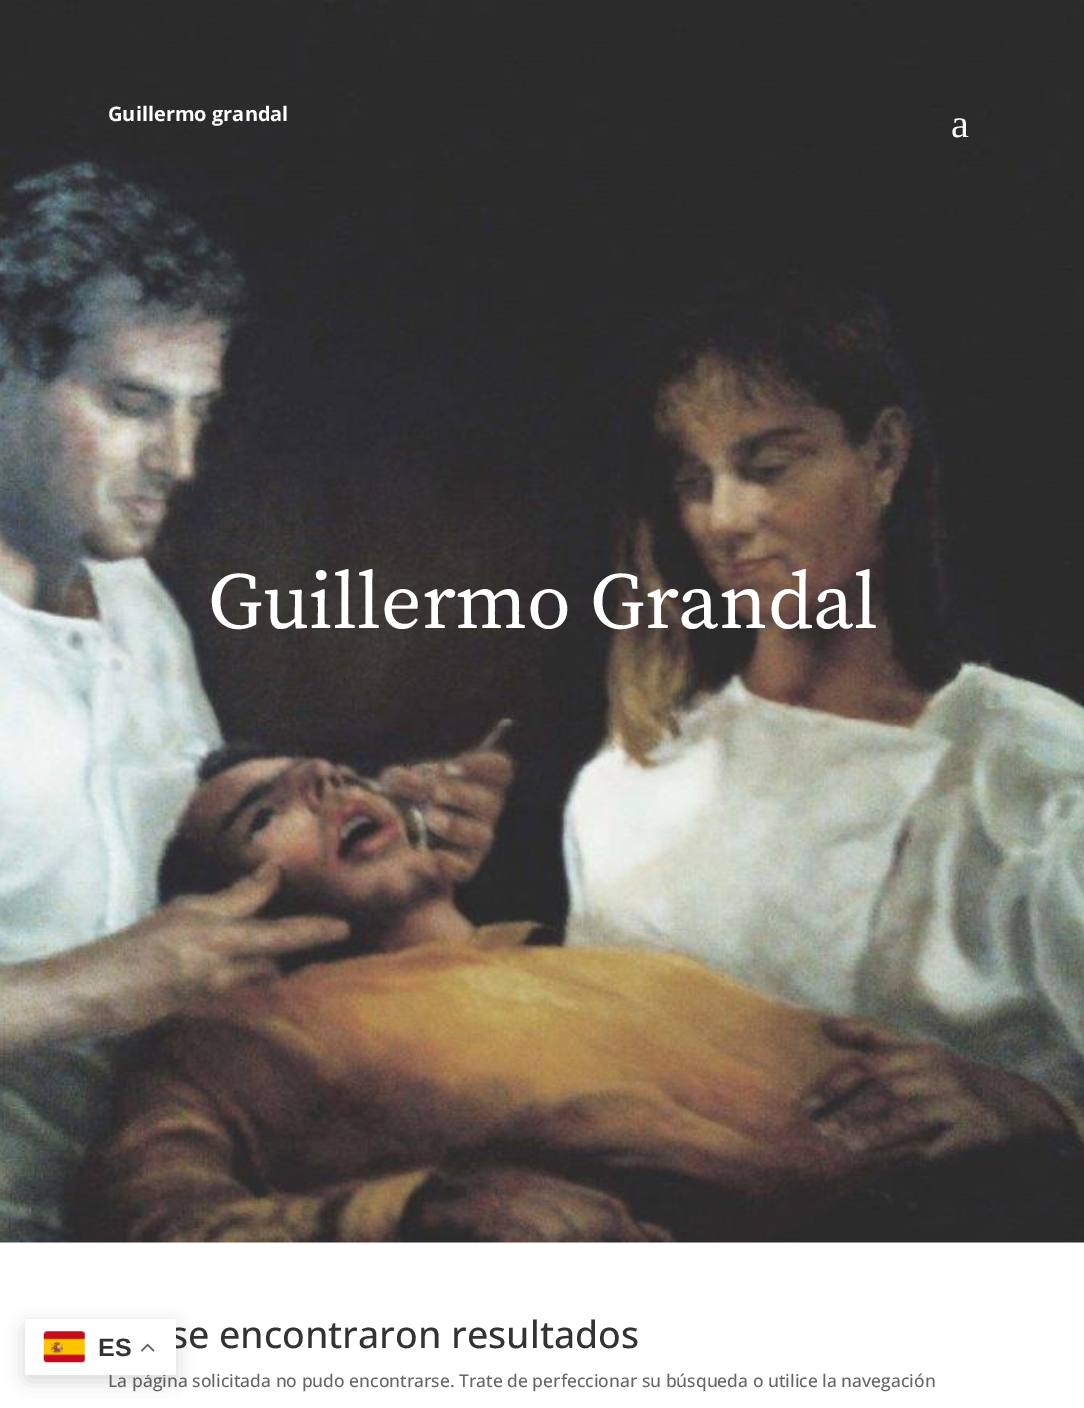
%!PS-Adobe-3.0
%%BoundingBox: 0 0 1084 1408
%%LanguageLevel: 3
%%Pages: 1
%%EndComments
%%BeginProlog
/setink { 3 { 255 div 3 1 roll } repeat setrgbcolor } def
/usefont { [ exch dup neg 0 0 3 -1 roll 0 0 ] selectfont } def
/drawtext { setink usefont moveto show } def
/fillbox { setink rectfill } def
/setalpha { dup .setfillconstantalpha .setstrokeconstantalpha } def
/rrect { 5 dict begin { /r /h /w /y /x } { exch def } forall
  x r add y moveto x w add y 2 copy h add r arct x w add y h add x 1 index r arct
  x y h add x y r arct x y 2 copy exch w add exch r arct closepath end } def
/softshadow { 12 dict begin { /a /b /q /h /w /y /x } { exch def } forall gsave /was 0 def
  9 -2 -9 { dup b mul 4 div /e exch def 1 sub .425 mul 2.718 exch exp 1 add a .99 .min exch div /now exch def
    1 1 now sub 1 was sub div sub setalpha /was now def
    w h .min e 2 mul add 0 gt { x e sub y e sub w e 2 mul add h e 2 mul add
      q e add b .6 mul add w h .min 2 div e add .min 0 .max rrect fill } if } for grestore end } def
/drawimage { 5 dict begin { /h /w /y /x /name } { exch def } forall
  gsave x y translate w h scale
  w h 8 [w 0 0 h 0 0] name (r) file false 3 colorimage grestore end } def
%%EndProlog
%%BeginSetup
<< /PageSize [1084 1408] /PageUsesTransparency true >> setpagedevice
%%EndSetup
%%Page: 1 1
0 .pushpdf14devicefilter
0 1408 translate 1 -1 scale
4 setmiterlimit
0 0 1084 1408 255 255 255 fillbox
(assets/img1.rgb) 0 0 1084 1243 drawimage
(Guillermo grandal) 108 121 /OpenSans-Bold 20 255 255 255 drawtext
(a) 951 137 /LiberationSerif-Regular 40 255 255 255 drawtext
(Guillermo Grandal) 208 628 /SourceSerifPro-Regular 80 255 255 255 drawtext
(se encontraron resultados) 170 1348 /OpenSans-Medium 37.5 51 51 51 drawtext
(La página solicitada no pudo encontrarse. Trate de perfeccionar su búsqueda o utilice la navegación) 108 1387 /OpenSans-Medium 17.5 102 102 102 drawtext
0 0 0 setink
25 1325 151 56 2.5 9.5 0.15 softshadow
255 255 255 setink
25 1319 151 56 2.5 rrect fill
(assets/img2.rgb) 43 1331 42 32 drawimage
(ES) 98 1356 /LiberationSans-Bold 25 51 51 51 drawtext
(assets/img3.rgb) 141 1343 14 9 drawimage
.poppdf14devicefilter showpage
%%EOF
